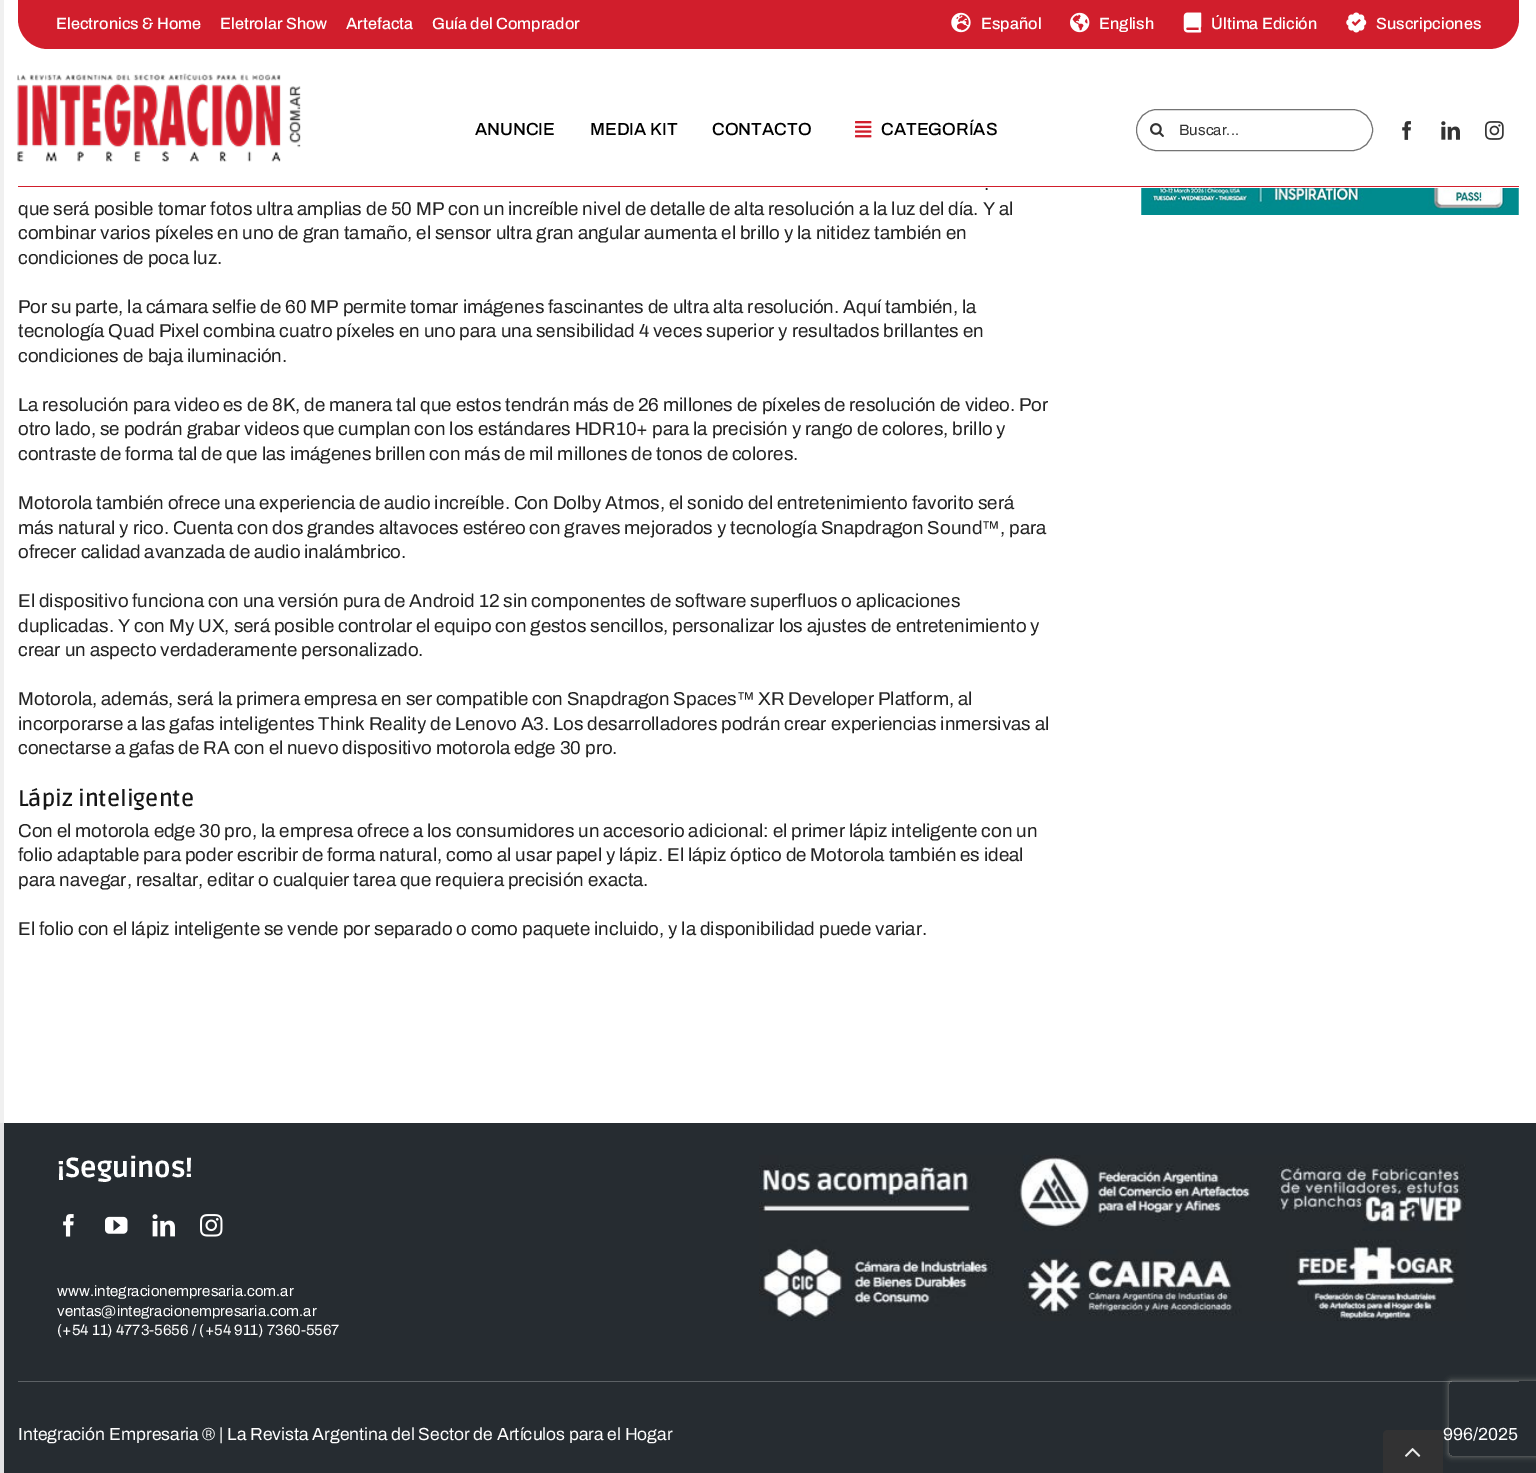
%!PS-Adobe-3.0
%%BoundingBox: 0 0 1536 1473
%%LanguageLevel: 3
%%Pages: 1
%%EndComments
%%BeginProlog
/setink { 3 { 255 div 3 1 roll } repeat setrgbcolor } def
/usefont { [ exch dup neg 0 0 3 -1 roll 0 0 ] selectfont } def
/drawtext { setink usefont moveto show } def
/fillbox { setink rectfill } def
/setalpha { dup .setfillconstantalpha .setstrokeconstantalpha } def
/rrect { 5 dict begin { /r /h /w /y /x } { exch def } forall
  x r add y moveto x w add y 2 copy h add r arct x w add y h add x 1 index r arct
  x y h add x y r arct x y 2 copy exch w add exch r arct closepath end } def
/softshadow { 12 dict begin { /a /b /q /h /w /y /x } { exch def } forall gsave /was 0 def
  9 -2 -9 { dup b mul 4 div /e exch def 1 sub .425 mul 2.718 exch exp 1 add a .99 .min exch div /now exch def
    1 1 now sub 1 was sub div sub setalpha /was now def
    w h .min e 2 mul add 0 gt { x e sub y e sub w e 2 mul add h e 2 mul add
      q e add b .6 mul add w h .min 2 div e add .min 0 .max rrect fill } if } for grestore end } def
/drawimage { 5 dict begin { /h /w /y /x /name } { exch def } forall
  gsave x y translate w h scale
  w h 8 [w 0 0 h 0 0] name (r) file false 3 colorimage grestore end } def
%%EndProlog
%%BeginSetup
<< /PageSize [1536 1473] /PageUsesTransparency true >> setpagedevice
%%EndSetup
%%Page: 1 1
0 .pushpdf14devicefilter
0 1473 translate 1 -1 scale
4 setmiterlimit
0 0 1536 1473 255 255 255 fillbox
0 0 4 1123 240 240 240 fillbox
209 30 44 setink
18 0 moveto 1519 0 lineto 1519 19 lineto 1519 35.5 1505.5 49 1489 49 curveto 48 49 lineto 31.5 49 18 35.5 18 19 curveto closepath fill
(Electronics & Home) 56 29 /Archivo-Medium 16.25 255 255 255 drawtext
(Eletrolar Show) 220 29 /Archivo-Medium 16.25 255 255 255 drawtext
(Artefacta) 346 29 /Archivo-Medium 16.25 255 255 255 drawtext
(Guía del Comprador) 432 29 /Archivo-Medium 16.25 255 255 255 drawtext
(assets/img1.rgb) 951 12 20 21 drawimage
(Español) 981 29 /Archivo-Medium 16.25 255 255 255 drawtext
(assets/img2.rgb) 1070 12 20 21 drawimage
(English) 1099 29 /Archivo-Medium 16.25 255 255 255 drawtext
(assets/img3.rgb) 1183 12 19 21 drawimage
(Última Edición) 1211 29 /Archivo-Medium 16.25 255 255 255 drawtext
(assets/img4.rgb) 1346 12 21 21 drawimage
(Suscripciones) 1376 29 /Archivo-Medium 16.25 255 255 255 drawtext
(assets/img5.rgb) 17 73 284 89 drawimage
(ANUNCIE) 475 135 /Archivo-Medium 17.5 0 0 0 drawtext
(MEDIA KIT) 590 135 /Archivo-Medium 17.5 0 0 0 drawtext
(CONTACTO) 712 135 /Archivo-Medium 17.5 0 0 0 drawtext
(assets/img6.rgb) 855 121 17 17 drawimage
(CATEGORÍAS) 881 135 /Archivo-Medium 17.5 0 0 0 drawtext
116 116 116 setink
1136.5 109.5 236 41 20.5 rrect stroke
(assets/img7.rgb) 1150 123 14 14 drawimage
(Buscar...) 1179 135 /Archivo-Regular 15 51 51 51 drawtext
(assets/img8.rgb) 1402 121 9 19 drawimage
(assets/img9.rgb) 1441 121 19 19 drawimage
(assets/img10.rgb) 1485 121 19 19 drawimage
18 186 1501 1 209 30 44 fillbox
(.) 984 190 /Archivo-Regular 18.75 35 35 35 drawtext
(que será posible tomar fotos ultra amplias de 50 MP con un increíble nivel de detalle de alta resolución a la luz del día. Y al) 18 215 /Archivo-Regular 18.75 35 35 35 drawtext
(combinar varios píxeles en uno de gran tamaño, el sensor ultra gran angular aumenta el brillo y la nitidez también en) 18 239 /Archivo-Regular 18.75 35 35 35 drawtext
(condiciones de poca luz.) 18 264 /Archivo-Regular 18.75 35 35 35 drawtext
(Por su parte, la cámara selfie de 60 MP permite tomar imágenes fascinantes de ultra alta resolución. Aquí también, la) 18 313 /Archivo-Regular 18.75 35 35 35 drawtext
(tecnología Quad Pixel combina cuatro píxeles en uno para una sensibilidad 4 veces superior y resultados brillantes en) 18 337 /Archivo-Regular 18.75 35 35 35 drawtext
(condiciones de baja iluminación.) 18 362 /Archivo-Regular 18.75 35 35 35 drawtext
(La resolución para video es de 8K, de manera tal que estos tendrán más de 26 millones de píxeles de resolución de video. Por) 18 411 /Archivo-Regular 18.75 35 35 35 drawtext
(otro lado, se podrán grabar videos que cumplan con los estándares HDR10+ para la precisión y rango de colores, brillo y) 18 435 /Archivo-Regular 18.75 35 35 35 drawtext
(contraste de forma tal de que las imágenes brillen con más de mil millones de tonos de colores.) 18 460 /Archivo-Regular 18.75 35 35 35 drawtext
(Motorola también ofrece una experiencia de audio increíble. Con Dolby Atmos, el sonido del entretenimiento favorito será) 18 509 /Archivo-Regular 18.75 35 35 35 drawtext
(más natural y rico. Cuenta con dos grandes altavoces estéreo con graves mejorados y tecnología Snapdragon Sound™, para) 18 534 /Archivo-Regular 18.75 35 35 35 drawtext
(ofrecer calidad avanzada de audio inalámbrico.) 18 558 /Archivo-Regular 18.75 35 35 35 drawtext
(El dispositivo funciona con una versión pura de Android 12 sin componentes de software superfluos o aplicaciones) 18 607 /Archivo-Regular 18.75 35 35 35 drawtext
(duplicadas. Y con My UX, será posible controlar el equipo con gestos sencillos, personalizar los ajustes de entretenimiento y) 18 632 /Archivo-Regular 18.75 35 35 35 drawtext
(crear un aspecto verdaderamente personalizado.) 18 656 /Archivo-Regular 18.75 35 35 35 drawtext
(Motorola, además, será la primera empresa en ser compatible con Snapdragon Spaces™ XR Developer Platform, al) 18 705 /Archivo-Regular 18.75 35 35 35 drawtext
(incorporarse a las gafas inteligentes Think Reality de Lenovo A3. Los desarrolladores podrán crear experiencias inmersivas al) 18 730 /Archivo-Regular 18.75 35 35 35 drawtext
(conectarse a gafas de RA con el nuevo dispositivo motorola edge 30 pro.) 18 754 /Archivo-Regular 18.75 35 35 35 drawtext
(Lápiz inteligente) 18 806 /Ruda-SemiBold 22.5 22 22 22 drawtext
(Con el motorola edge 30 pro, la empresa ofrece a los consumidores un accesorio adicional: el primer lápiz inteligente con un) 18 837 /Archivo-Regular 18.75 35 35 35 drawtext
(folio adaptable para poder escribir de forma natural, como al usar papel y lápiz. El lápiz óptico de Motorola también es ideal) 18 861 /Archivo-Regular 18.75 35 35 35 drawtext
(para navegar, resaltar, editar o cualquier tarea que requiera precisión exacta.) 18 886 /Archivo-Regular 18.75 35 35 35 drawtext
(El folio con el lápiz inteligente se vende por separado o como paquete incluido, y la disponibilidad puede variar.) 18 935 /Archivo-Regular 18.75 35 35 35 drawtext
(assets/img11.rgb) 1141 188 378 27 drawimage
4 1123 1532 350 38 44 49 fillbox
0 1123 4 347 227 227 228 fillbox
(¡Seguinos!) 57 1177 /Ruda-ExtraBold 27.5 255 255 255 drawtext
(assets/img12.rgb) 63 1214 11 23 drawimage
(assets/img13.rgb) 105 1216 23 18 drawimage
(assets/img14.rgb) 152 1214 23 23 drawimage
(assets/img15.rgb) 200 1214 23 23 drawimage
(www.integracionempresaria.com.ar) 57 1296 /Archivo-Regular 15 255 255 255 drawtext
(ventas@integracionempresaria.com.ar) 57 1316 /Archivo-Regular 15 255 255 255 drawtext
(\(+54 11\) 4773-5656 / \(+54 911\) 7360-5567) 57 1335 /Archivo-Regular 15 255 255 255 drawtext
(assets/img16.rgb) 759 1155 707 166 drawimage
gsave
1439 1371 moveto 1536 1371 lineto 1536 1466 lineto 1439 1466 lineto closepath 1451.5 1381 moveto 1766.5 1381 lineto 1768 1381 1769 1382 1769 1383.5 curveto 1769 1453.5 lineto 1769 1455 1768 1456 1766.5 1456 curveto 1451.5 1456 lineto 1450 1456 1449 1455 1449 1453.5 curveto 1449 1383.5 lineto 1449 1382 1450 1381 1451.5 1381 curveto closepath eoclip newpath
128 128 128 setink
1449 1381 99 75 2.5 3 1 softshadow
grestore
0.25 setalpha
18 1381 1501 1 255 255 255 fillbox
1 setalpha
(Integración Empresaria ® | La Revista Argentina del Sector de Artículos para el Hogar) 18 1440 /Archivo-Regular 17.5 255 255 255 drawtext
(996/2025) 1443 1440 /Archivo-Regular 17.5 255 255 255 drawtext
227 227 228 setink
4 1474 moveto -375 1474 lineto -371 1470 lineto 4 1470 lineto closepath fill
0.9 setalpha
51 51 51 setink
1388 1430 moveto 1438 1430 lineto 1441 1430 1443 1432 1443 1435 curveto 1443 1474 lineto 1383 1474 lineto 1383 1435 lineto 1383 1432 1385 1430 1388 1430 curveto closepath fill
1 setalpha
(assets/img17.rgb) 1405 1448 16 9 drawimage
.poppdf14devicefilter showpage
%%EOF
